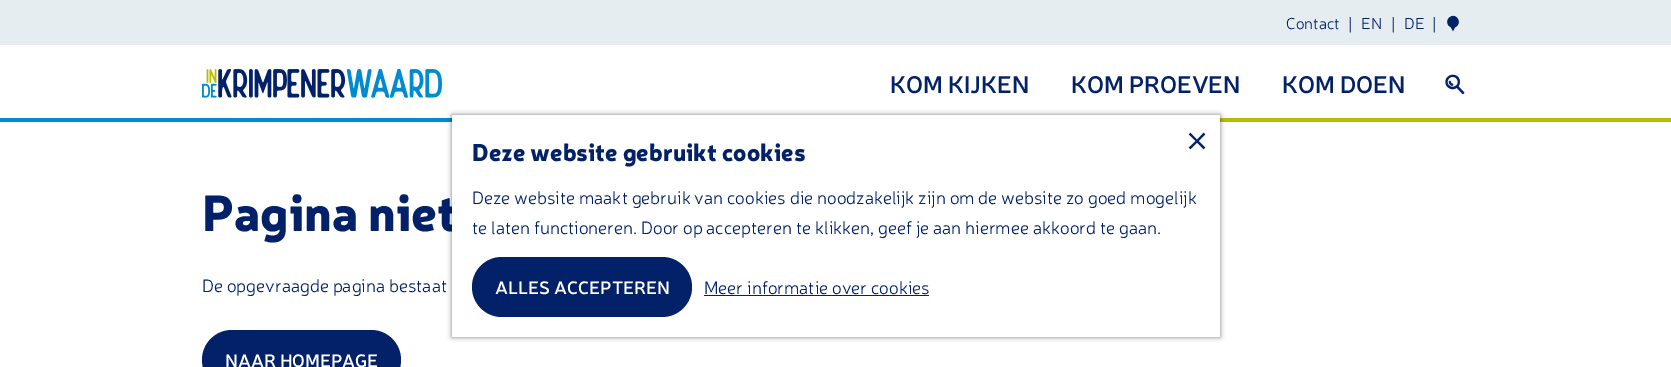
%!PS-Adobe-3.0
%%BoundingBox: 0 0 1671 367
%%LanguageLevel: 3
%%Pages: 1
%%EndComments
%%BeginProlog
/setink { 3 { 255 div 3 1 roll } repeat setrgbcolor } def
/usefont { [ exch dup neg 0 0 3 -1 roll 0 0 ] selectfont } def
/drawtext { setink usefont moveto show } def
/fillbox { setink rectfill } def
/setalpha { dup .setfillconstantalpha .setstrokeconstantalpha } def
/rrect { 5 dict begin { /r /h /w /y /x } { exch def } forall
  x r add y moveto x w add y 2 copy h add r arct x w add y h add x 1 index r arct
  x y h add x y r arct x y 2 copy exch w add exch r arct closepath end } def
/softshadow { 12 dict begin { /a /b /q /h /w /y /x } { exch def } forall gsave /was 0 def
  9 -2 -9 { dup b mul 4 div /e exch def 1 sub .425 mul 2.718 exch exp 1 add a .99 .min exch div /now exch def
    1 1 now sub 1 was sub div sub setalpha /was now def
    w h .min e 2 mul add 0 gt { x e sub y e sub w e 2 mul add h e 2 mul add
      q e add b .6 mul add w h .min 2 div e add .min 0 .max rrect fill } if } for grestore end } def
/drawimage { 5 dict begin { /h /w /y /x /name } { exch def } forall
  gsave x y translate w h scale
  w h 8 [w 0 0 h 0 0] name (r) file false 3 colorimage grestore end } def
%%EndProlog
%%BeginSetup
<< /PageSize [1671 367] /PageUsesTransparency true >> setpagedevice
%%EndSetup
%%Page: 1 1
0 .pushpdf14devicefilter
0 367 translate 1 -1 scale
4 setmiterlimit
0 0 1671 367 255 255 255 fillbox
0 0 1671 45 229 237 241 fillbox
(Contact) 1286 29 /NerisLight-Light 16 2 33 105 drawtext
(|) 1348 29 /NerisLight-Light 16 2 33 105 drawtext
(EN) 1361 29 /NerisLight-Light 16 2 33 105 drawtext
(|) 1391 29 /NerisLight-Light 16 2 33 105 drawtext
(DE) 1404 29 /NerisLight-Light 16 2 33 105 drawtext
(|) 1432 29 /NerisLight-Light 16 2 33 105 drawtext
(assets/img1.rgb) 1447 15 12 17 drawimage
(assets/img2.rgb) 202 69 240 29 drawimage
(KOM KIJKEN) 890 93 /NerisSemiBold-SemiBold 24 2 33 105 drawtext
(KOM PROEVEN) 1071 93 /NerisSemiBold-SemiBold 24 2 33 105 drawtext
(KOM DOEN) 1282 93 /NerisSemiBold-SemiBold 24 2 33 105 drawtext
(assets/img3.rgb) 1445 74 20 20 drawimage
0 118 452 4 0 138 209 fillbox
1220 118 451 4 182 189 0 fillbox
(Pagina niet) 202 231 /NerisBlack-Black 50 2 33 105 drawtext
(De opgevraagde pagina bestaat) 202 292 /NerisLight-Light 18 2 33 105 drawtext
202 330 199 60 30 rrect fill
(NAAR HOMEPAGE) 225 367 /NerisSemiBold-SemiBold 18 255 255 255 drawtext
0 0 0 setink
452 115 768 222 0 2.5 0.5 softshadow
452 115 768 222 255 255 255 fillbox
(assets/img4.rgb) 1188 132 18 18 drawimage
(Deze website gebruikt cookies) 472 161 /NerisBlack-Black 24 2 33 105 drawtext
(Deze website maakt gebruik van cookies die noodzakelijk zijn om de website zo goed mogelijk) 472 204 /NerisLight-Light 18 2 33 105 drawtext
(te laten functioneren. Door op accepteren te klikken, geef je aan hiermee akkoord te gaan.) 472 234 /NerisLight-Light 18 2 33 105 drawtext
472 257 220 60 30 rrect fill
(ALLES ACCEPTEREN) 495 294 /NerisSemiBold-SemiBold 18 255 255 255 drawtext
(Meer informatie over cookies) 704 294 /NerisLight-Light 18 2 33 105 drawtext
704 295 225 1 2 33 105 fillbox
.poppdf14devicefilter showpage
%%EOF
